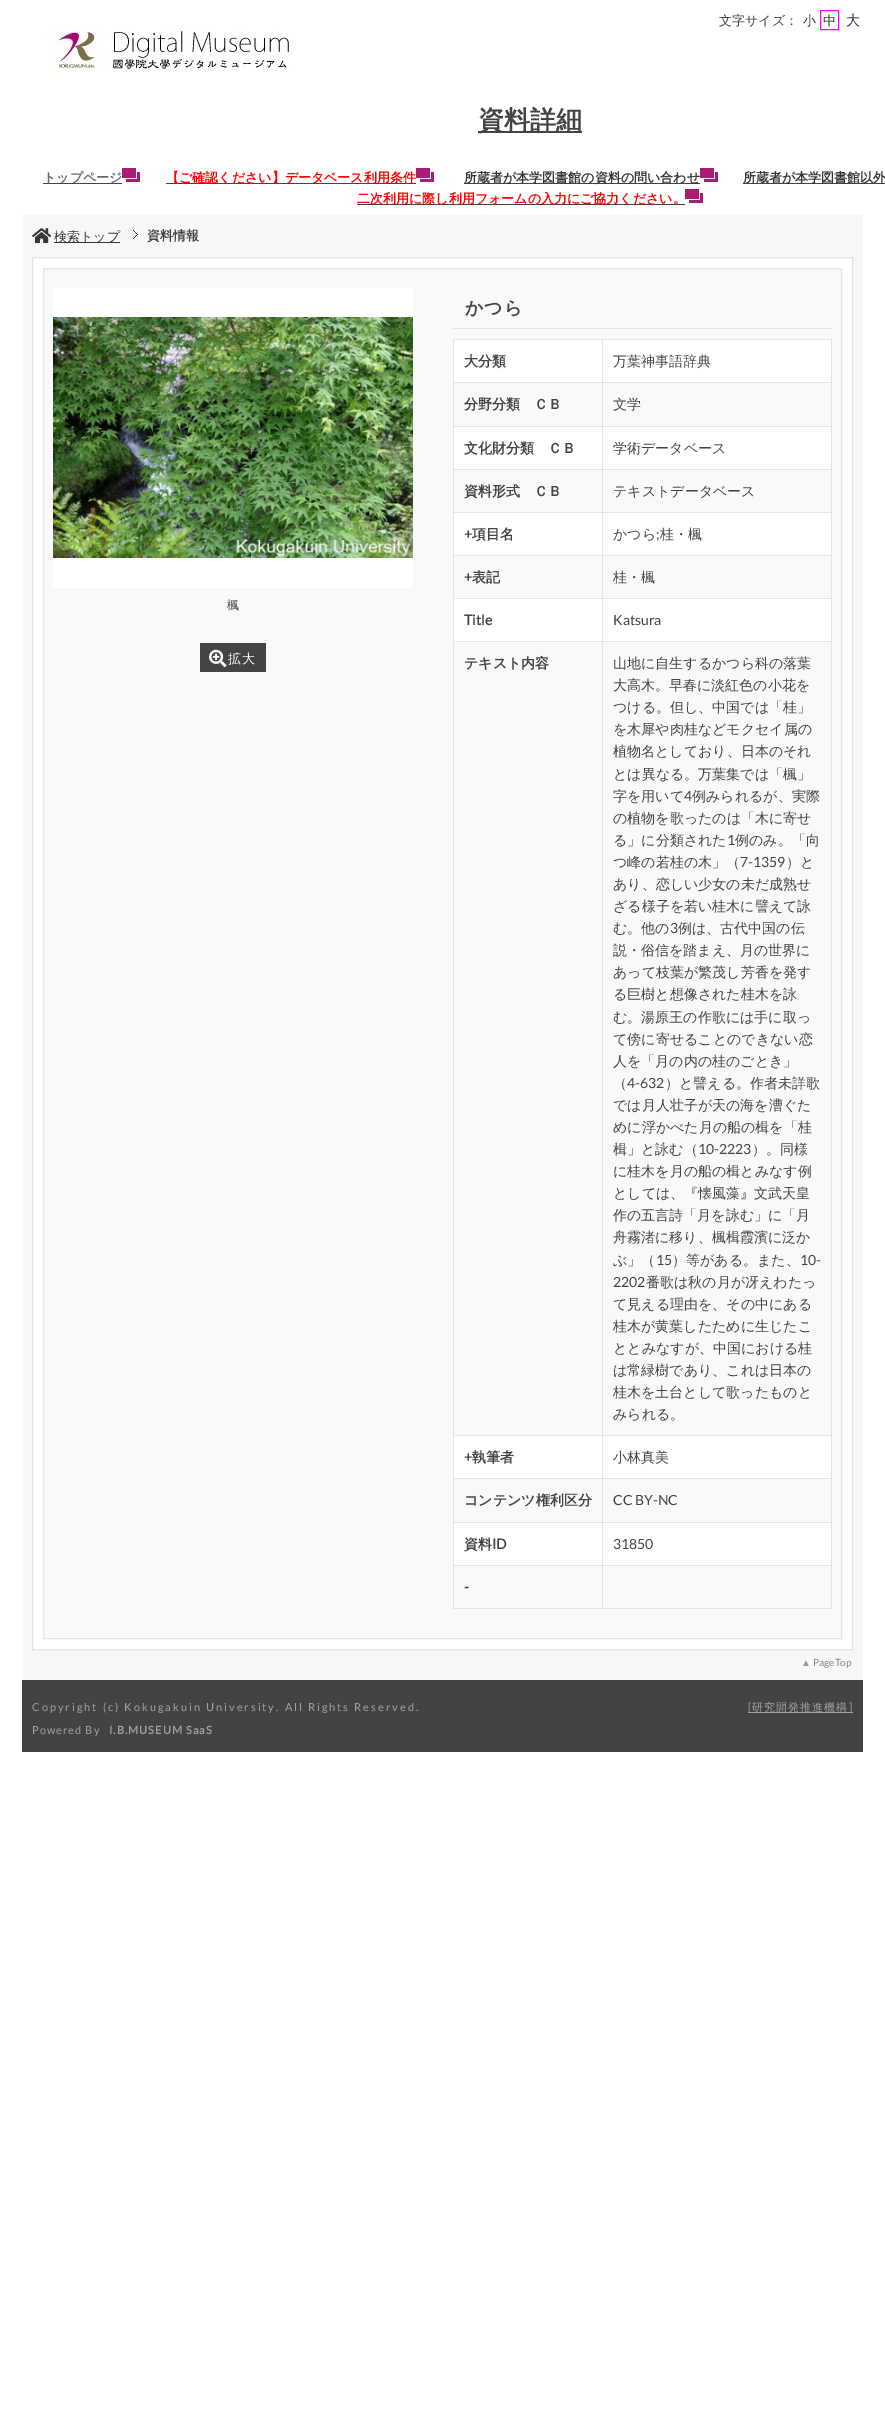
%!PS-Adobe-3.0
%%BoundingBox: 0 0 885 2413
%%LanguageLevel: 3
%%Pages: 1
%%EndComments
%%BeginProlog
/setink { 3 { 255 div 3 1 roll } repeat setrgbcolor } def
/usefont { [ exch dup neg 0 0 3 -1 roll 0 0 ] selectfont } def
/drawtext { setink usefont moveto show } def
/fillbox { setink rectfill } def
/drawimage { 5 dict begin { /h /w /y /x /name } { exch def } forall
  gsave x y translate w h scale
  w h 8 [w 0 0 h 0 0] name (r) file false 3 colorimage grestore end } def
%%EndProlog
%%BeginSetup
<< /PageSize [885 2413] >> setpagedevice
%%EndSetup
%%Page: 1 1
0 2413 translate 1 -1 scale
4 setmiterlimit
0 0 885 2413 255 255 255 fillbox
(文字サイズ：) 719 25 /WenQuanYiZenHei-Medium 13 68 68 68 drawtext
(小) 803 25 /WenQuanYiZenHei-Medium 13 54 54 54 drawtext
255 0 255 setink
820.5 10.5 18 19 rectstroke
(中) 823 25 /WenQuanYiZenHei-Medium 13 54 54 54 drawtext
(大) 846 25 /WenQuanYiZenHei-Medium 14 54 54 54 drawtext
(assets/img1.rgb) 54 27 240 45 drawimage
478 131 104 2 68 68 68 fillbox
(資料詳細) 478 129 /WenQuanYiZenHei-Bold 26 68 68 68 drawtext
43 183 79 1 68 68 68 fillbox
(トップページ) 43 182 /WenQuanYiZenHei-Bold 13 102 102 102 drawtext
(assets/img2.rgb) 122 168 18 14 drawimage
166 183 250 1 68 68 68 fillbox
(【ご確認ください】データベース利用条件) 166 182 /WenQuanYiZenHei-Bold 13 255 0 0 drawtext
(assets/img2.rgb) 416 168 18 14 drawimage
464 183 236 1 68 68 68 fillbox
(所蔵者が本学図書館の資料の問い合わせ) 464 182 /WenQuanYiZenHei-Bold 13 54 54 54 drawtext
(assets/img2.rgb) 700 168 18 14 drawimage
743 183 142 1 68 68 68 fillbox
(所蔵者が本学図書館以外) 743 182 /WenQuanYiZenHei-Bold 13 54 54 54 drawtext
357 204 328 1 68 68 68 fillbox
(二次利用に際し利用フォームの入力にご協力ください。) 357 203 /WenQuanYiZenHei-Bold 13 255 0 0 drawtext
(assets/img2.rgb) 685 189 18 14 drawimage
22 215 841 1465 247 247 247 fillbox
(assets/img3.rgb) 32 228 20 16 drawimage
54 242 66 1 54 54 54 fillbox
(検索トップ) 54 241 /WenQuanYiZenHei-Medium 13 54 54 54 drawtext
(assets/img4.rgb) 133 230 5 9 drawimage
(資料情報) 147 240 /WenQuanYiZenHei-Bold 13 68 68 68 drawtext
255 255 255 setink
32.5 257.5 moveto 852.5 257.5 lineto 852.5 1649.5 lineto 32.5 1649.5 lineto closepath gsave fill grestore
227 227 227 setink
stroke
249 249 249 setink
43.5 268.5 moveto 841.5 268.5 lineto 841.5 1638.5 lineto 43.5 1638.5 lineto closepath gsave fill grestore
229 229 229 setink
stroke
53 288 360 300 255 255 255 fillbox
(assets/img5.rgb) 53 317 360 241 drawimage
(楓) 227 609 /WenQuanYiZenHei-Medium 12 68 68 68 drawtext
200 643 66 29 68 68 68 fillbox
(assets/img6.rgb) 209 649 18 19 drawimage
/WenQuanYiZenHei-Medium 13 usefont
255 255 255 setink
228 663 moveto 1 0 (拡大) ashow
453 328 379 1 229 229 229 fillbox
/WenQuanYiZenHei-Bold 18 usefont
68 68 68 setink
465 314 moveto 1 0 (かつら) ashow
454 340 377 1225 255 255 255 fillbox
453 339 379 1 229 229 229 fillbox
831 339 1 1270 229 229 229 fillbox
453 1608 379 1 229 229 229 fillbox
453 339 1 1270 229 229 229 fillbox
(大分類) 464 366 /WenQuanYiZenHei-Bold 14 68 68 68 drawtext
602 382 230 1 229 229 229 fillbox
454 383 377 43 249 249 249 fillbox
602 426 230 1 229 229 229 fillbox
602 469 230 1 229 229 229 fillbox
454 470 377 42 249 249 249 fillbox
602 512 230 1 229 229 229 fillbox
602 555 230 1 229 229 229 fillbox
454 556 377 42 249 249 249 fillbox
602 598 230 1 229 229 229 fillbox
602 641 230 1 229 229 229 fillbox
454 642 377 793 249 249 249 fillbox
602 1435 230 1 229 229 229 fillbox
602 1478 230 1 229 229 229 fillbox
454 1479 377 43 249 249 249 fillbox
602 1522 230 1 229 229 229 fillbox
453 1565 150 1 229 229 229 fillbox
602 1565 1 44 229 229 229 fillbox
602 1565 230 1 229 229 229 fillbox
602 1522 1 44 229 229 229 fillbox
453 1522 150 1 229 229 229 fillbox
602 1478 1 45 229 229 229 fillbox
453 1478 150 1 229 229 229 fillbox
602 1435 1 44 229 229 229 fillbox
453 1435 150 1 229 229 229 fillbox
602 641 1 795 229 229 229 fillbox
453 641 150 1 229 229 229 fillbox
602 598 1 44 229 229 229 fillbox
453 598 150 1 229 229 229 fillbox
602 555 1 44 229 229 229 fillbox
453 555 150 1 229 229 229 fillbox
602 512 1 44 229 229 229 fillbox
453 512 150 1 229 229 229 fillbox
602 469 1 44 229 229 229 fillbox
453 469 150 1 229 229 229 fillbox
602 426 1 44 229 229 229 fillbox
453 426 150 1 229 229 229 fillbox
602 382 1 45 229 229 229 fillbox
453 382 150 1 229 229 229 fillbox
602 339 1 44 229 229 229 fillbox
(万葉神事語辞典) 613 366 /WenQuanYiZenHei-Medium 14 68 68 68 drawtext
(分野分類　ＣＢ) 464 409 /WenQuanYiZenHei-Bold 14 68 68 68 drawtext
(文学) 613 409 /WenQuanYiZenHei-Medium 14 68 68 68 drawtext
(文化財分類　ＣＢ) 464 453 /WenQuanYiZenHei-Bold 14 68 68 68 drawtext
(学術データベース) 613 453 /WenQuanYiZenHei-Medium 14 68 68 68 drawtext
(資料形式　ＣＢ) 464 496 /WenQuanYiZenHei-Bold 14 68 68 68 drawtext
(テキストデータベース) 613 496 /WenQuanYiZenHei-Medium 14 68 68 68 drawtext
(+) 464 539 /Lato-Bold 14 68 68 68 drawtext
(項目名) 472 539 /WenQuanYiZenHei-Bold 14 68 68 68 drawtext
(かつら) 613 539 /WenQuanYiZenHei-Medium 14 68 68 68 drawtext
(;) 656 539 /Lato-Regular 14 68 68 68 drawtext
(桂・楓) 660 539 /WenQuanYiZenHei-Medium 14 68 68 68 drawtext
(+) 464 582 /Lato-Bold 14 68 68 68 drawtext
(表記) 472 582 /WenQuanYiZenHei-Bold 14 68 68 68 drawtext
(桂・楓) 613 582 /WenQuanYiZenHei-Medium 14 68 68 68 drawtext
(Title) 464 625 /Lato-Bold 14 68 68 68 drawtext
(Katsura) 613 625 /Lato-Regular 14 68 68 68 drawtext
(テキスト内容) 464 668 /WenQuanYiZenHei-Bold 14 68 68 68 drawtext
(山地に自生するかつら科の落葉) 613 668 /WenQuanYiZenHei-Medium 14 68 68 68 drawtext
(大高木。早春に淡紅色の小花を) 613 690 /WenQuanYiZenHei-Medium 14 68 68 68 drawtext
(つける。但し、中国では「桂」) 613 712 /WenQuanYiZenHei-Medium 14 68 68 68 drawtext
(を木犀や肉桂などモクセイ属の) 613 734 /WenQuanYiZenHei-Medium 14 68 68 68 drawtext
(植物名としており、日本のそれ) 613 756 /WenQuanYiZenHei-Medium 14 68 68 68 drawtext
(とは異なる。万葉集では「楓」) 613 779 /WenQuanYiZenHei-Medium 14 68 68 68 drawtext
(字を用いて) 613 801 /WenQuanYiZenHei-Medium 14 68 68 68 drawtext
(4) 684 801 /Lato-Regular 14 68 68 68 drawtext
(例みられるが、実際) 692 801 /WenQuanYiZenHei-Medium 14 68 68 68 drawtext
(の植物を歌ったのは「木に寄せ) 613 823 /WenQuanYiZenHei-Medium 14 68 68 68 drawtext
(る」に分類された) 613 845 /WenQuanYiZenHei-Medium 14 68 68 68 drawtext
(1) 727 845 /Lato-Regular 14 68 68 68 drawtext
(例のみ。「向) 735 845 /WenQuanYiZenHei-Medium 14 68 68 68 drawtext
(つ峰の若桂の木」（) 613 867 /WenQuanYiZenHei-Medium 14 68 68 68 drawtext
(7-1359) 740 867 /Lato-Regular 14 68 68 68 drawtext
(）と) 786 867 /WenQuanYiZenHei-Medium 14 68 68 68 drawtext
(あり、恋しい少女の未だ成熟せ) 613 889 /WenQuanYiZenHei-Medium 14 68 68 68 drawtext
(ざる様子を若い桂木に譬えて詠) 613 911 /WenQuanYiZenHei-Medium 14 68 68 68 drawtext
(む。他の) 613 933 /WenQuanYiZenHei-Medium 14 68 68 68 drawtext
(3) 670 933 /Lato-Regular 14 68 68 68 drawtext
(例は、古代中国の伝) 678 933 /WenQuanYiZenHei-Medium 14 68 68 68 drawtext
(説・俗信を踏まえ、月の世界に) 613 955 /WenQuanYiZenHei-Medium 14 68 68 68 drawtext
(あって枝葉が繁茂し芳香を発す) 613 977 /WenQuanYiZenHei-Medium 14 68 68 68 drawtext
(る巨樹と想像された桂木を詠) 613 999 /WenQuanYiZenHei-Medium 14 68 68 68 drawtext
(む。湯原王の作歌には手に取っ) 613 1022 /WenQuanYiZenHei-Medium 14 68 68 68 drawtext
(て傍に寄せることのできない恋) 613 1044 /WenQuanYiZenHei-Medium 14 68 68 68 drawtext
(人を「月の内の桂のごとき」) 613 1066 /WenQuanYiZenHei-Medium 14 68 68 68 drawtext
(（) 613 1088 /WenQuanYiZenHei-Medium 14 68 68 68 drawtext
(4-632) 627 1088 /Lato-Regular 14 68 68 68 drawtext
(）と譬える。作者未詳歌) 665 1088 /WenQuanYiZenHei-Medium 14 68 68 68 drawtext
(では月人壮子が天の海を漕ぐた) 613 1110 /WenQuanYiZenHei-Medium 14 68 68 68 drawtext
(めに浮かべた月の船の楫を「桂) 613 1132 /WenQuanYiZenHei-Medium 14 68 68 68 drawtext
(楫」と詠む（) 613 1154 /WenQuanYiZenHei-Medium 14 68 68 68 drawtext
(10-2223) 698 1154 /Lato-Regular 14 68 68 68 drawtext
(）。同様) 752 1154 /WenQuanYiZenHei-Medium 14 68 68 68 drawtext
(に桂木を月の船の楫とみなす例) 613 1176 /WenQuanYiZenHei-Medium 14 68 68 68 drawtext
(としては、『懐風藻』文武天皇) 613 1198 /WenQuanYiZenHei-Medium 14 68 68 68 drawtext
(作の五言詩「月を詠む」に「月) 613 1220 /WenQuanYiZenHei-Medium 14 68 68 68 drawtext
(舟霧渚に移り、楓楫霞濱に泛か) 613 1242 /WenQuanYiZenHei-Medium 14 68 68 68 drawtext
(ぶ」（) 613 1265 /WenQuanYiZenHei-Medium 14 68 68 68 drawtext
(15) 656 1265 /Lato-Regular 14 68 68 68 drawtext
(）等がある。また、) 672 1265 /WenQuanYiZenHei-Medium 14 68 68 68 drawtext
(10-) 800 1265 /Lato-Regular 14 68 68 68 drawtext
(2202) 613 1287 /Lato-Regular 14 68 68 68 drawtext
(番歌は秋の月が冴えわたっ) 646 1287 /WenQuanYiZenHei-Medium 14 68 68 68 drawtext
(て見える理由を、その中にある) 613 1309 /WenQuanYiZenHei-Medium 14 68 68 68 drawtext
(桂木が黄葉したために生じたこ) 613 1331 /WenQuanYiZenHei-Medium 14 68 68 68 drawtext
(ととみなすが、中国における桂) 613 1353 /WenQuanYiZenHei-Medium 14 68 68 68 drawtext
(は常緑樹であり、これは日本の) 613 1375 /WenQuanYiZenHei-Medium 14 68 68 68 drawtext
(桂木を土台として歌ったものと) 613 1397 /WenQuanYiZenHei-Medium 14 68 68 68 drawtext
(みられる。) 613 1419 /WenQuanYiZenHei-Medium 14 68 68 68 drawtext
(+) 464 1462 /Lato-Bold 14 68 68 68 drawtext
(執筆者) 472 1462 /WenQuanYiZenHei-Bold 14 68 68 68 drawtext
(小林真美) 613 1462 /WenQuanYiZenHei-Medium 14 68 68 68 drawtext
(コンテンツ権利区分) 464 1505 /WenQuanYiZenHei-Bold 14 68 68 68 drawtext
(CC BY-NC) 613 1505 /Lato-Regular 14 68 68 68 drawtext
(資料) 464 1549 /WenQuanYiZenHei-Bold 14 68 68 68 drawtext
(ID) 492 1549 /Lato-Bold 14 68 68 68 drawtext
(31850) 613 1549 /Lato-Regular 14 68 68 68 drawtext
(-) 464 1592 /Lato-Bold 14 68 68 68 drawtext
(▲) 801 1666 /LiberationSans-Regular 10 153 153 153 drawtext
(PageTop) 813 1666 /Lato-Regular 10 136 136 136 drawtext
22 1680 841 72 67 67 67 fillbox
/Lato-Regular 11 usefont
161 161 161 setink
32 1711 moveto 2 0 (Copyright \(c\) Kokugakuin University. All Rights Reserved.) ashow
748 1712 105 1 161 161 161 fillbox
748 1711 moveto 1 0 ([) ashow
/WenQuanYiZenHei-Medium 11 usefont
752 1711 moveto 1 0 (研究開発推進機構) ashow
/Lato-Regular 11 usefont
849 1711 moveto 1 0 (]) ashow
32 1734 moveto 1 0 (Powered By) ashow
/Lato-Bold 11 usefont
109 1734 moveto 1 0 (I.B.MUSEUM SaaS) ashow
showpage
%%EOF
